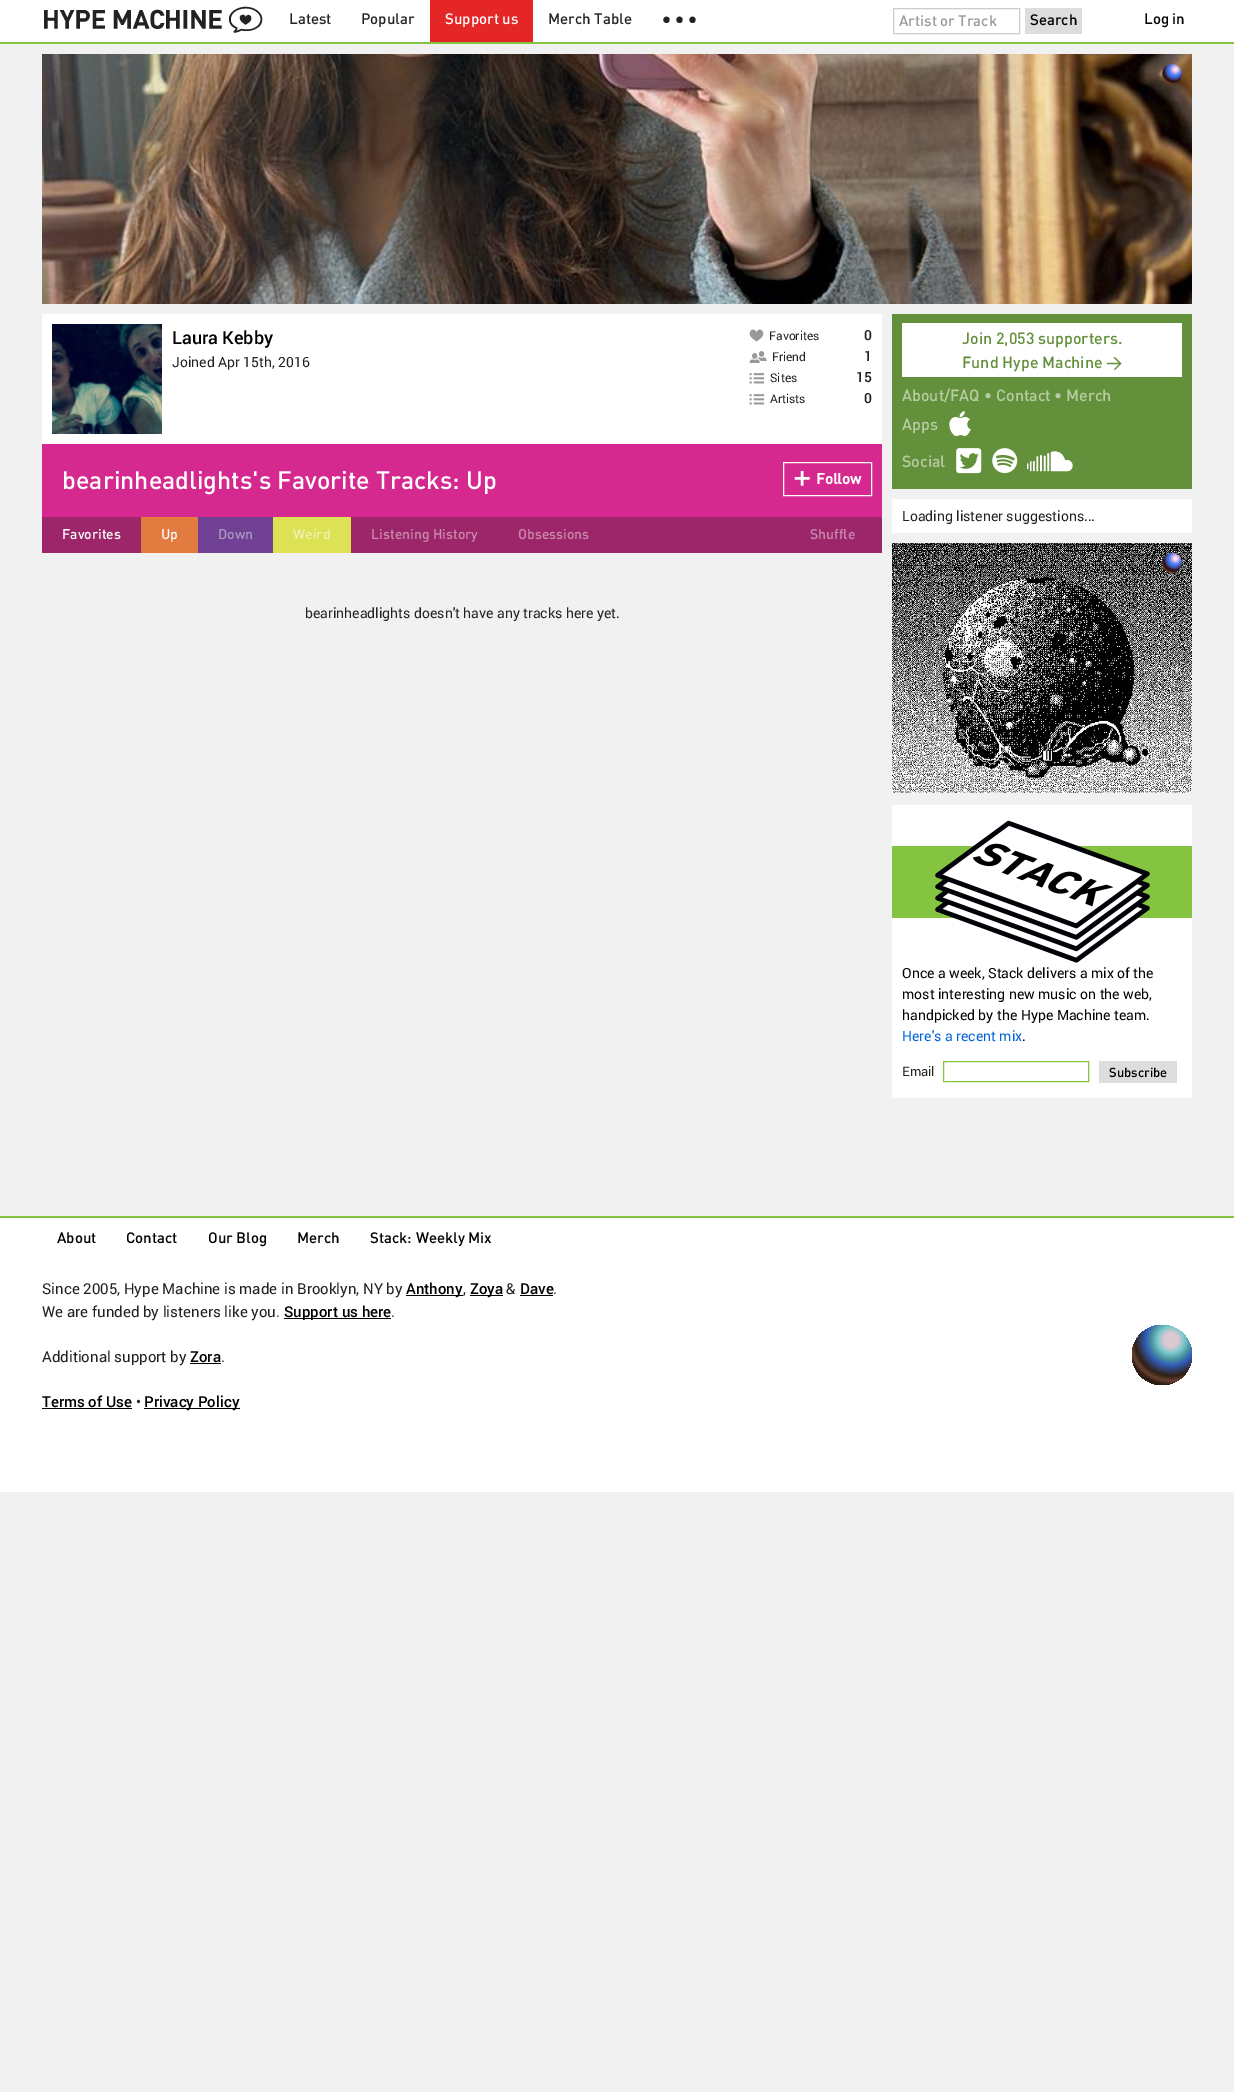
%!PS-Adobe-3.0
%%BoundingBox: 0 0 1234 2092
%%LanguageLevel: 3
%%Pages: 1
%%EndComments
%%BeginProlog
/setink { 3 { 255 div 3 1 roll } repeat setrgbcolor } def
/usefont { [ exch dup neg 0 0 3 -1 roll 0 0 ] selectfont } def
/drawtext { setink usefont moveto show } def
/fillbox { setink rectfill } def
/disc { newpath 0 360 arc closepath } def
/drawimage { 5 dict begin { /h /w /y /x /name } { exch def } forall
  gsave x y translate w h scale
  w h 8 [w 0 0 h 0 0] name (r) file false 3 colorimage grestore end } def
%%EndProlog
%%BeginSetup
<< /PageSize [1234 2092] >> setpagedevice
%%EndSetup
%%Page: 1 1
0 2092 translate 1 -1 scale
4 setmiterlimit
0 0 1234 2092 241 241 241 fillbox
0 0 1234 42 255 255 255 fillbox
0 42 1234 2 131 196 65 fillbox
(1) 42 28 /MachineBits-Regular 38 34 34 34 drawtext
(Latest) 289 24 /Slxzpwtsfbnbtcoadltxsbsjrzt-Medium 15 34 34 34 drawtext
(Popular) 361 24 /Slxzpwtsfbnbtcoadltxsbsjrzt-Medium 15 34 34 34 drawtext
430 0 103 42 228 38 38 fillbox
(Support us) 445 24 /Slxzpwtsfbnbtcoadltxsbsjrzt-Medium 15 255 255 255 drawtext
(Merch Table) 548 24 /Slxzpwtsfbnbtcoadltxsbsjrzt-Medium 15 34 34 34 drawtext
(● ● ●) 662 24 /LiberationSerif-Bold 15 34 34 34 drawtext
204 204 204 setink
893.5 8.5 126 25 rectstroke
(Artist or Track) 899 26 /Slxzpwtsfbnbtcoadltxsbsjrzt-Medium 15 153 153 153 drawtext
1025 8 57 26 221 221 221 fillbox
(Search) 1030 25 /Slxzpwtsfbnbtcoadltxsbsjrzt-Medium 15 0 0 0 drawtext
(Log in) 1144 24 /Slxzpwtsfbnbtcoadltxsbsjrzt-Medium 15 0 0 0 drawtext
(assets/img1.rgb) 42 54 1150 250 drawimage
42 314 840 130 255 255 255 fillbox
(assets/img2.rgb) 52 324 110 110 drawimage
(Laura Kebby) 172 344 /Roboto-Medium 18 0 0 0 drawtext
(Joined Apr 15th, 2016) 172 367 /Roboto-Regular 14 34 34 34 drawtext
(assets/img3.rgb) 749 329 15 13 drawimage
(Favorites) 769 340 /Roboto-Regular 12 34 34 34 drawtext
(0) 864 340 /Roboto-Medium 14 34 34 34 drawtext
(assets/img4.rgb) 749 351 18 12 drawimage
(Friend) 772 361 /Roboto-Regular 12 34 34 34 drawtext
(1) 864 361 /Roboto-Medium 14 34 34 34 drawtext
(assets/img5.rgb) 749 373 16 11 drawimage
(Sites) 770 382 /Roboto-Regular 12 34 34 34 drawtext
(15) 856 382 /Roboto-Medium 14 34 34 34 drawtext
(assets/img5.rgb) 749 394 16 11 drawimage
(Artists) 770 403 /Roboto-Regular 12 34 34 34 drawtext
(0) 864 403 /Roboto-Medium 14 34 34 34 drawtext
892 314 300 175 99 144 58 fillbox
902 323 280 54 255 255 255 fillbox
(Join 2,053 supporters.) 962 344 /Slxzpwtsfbnbtcoadltxsbsjrzt-Medium 16 99 144 58 drawtext
(Fund Hype Machine →) 962 368 /Slxzpwtsfbnbtcoadltxsbsjrzt-Medium 16 99 144 58 drawtext
(About/FAQ) 902 401 /Slxzpwtsfbnbtcoadltxsbsjrzt-Medium 16 185 205 165 drawtext
(•) 984 401 /Slxzpwtsfbnbtcoadltxsbsjrzt-Medium 16 185 205 165 drawtext
(Contact) 996 401 /Slxzpwtsfbnbtcoadltxsbsjrzt-Medium 16 185 205 165 drawtext
(•) 1054 401 /Slxzpwtsfbnbtcoadltxsbsjrzt-Medium 16 185 205 165 drawtext
(Merch) 1066 401 /Slxzpwtsfbnbtcoadltxsbsjrzt-Medium 16 185 205 165 drawtext
(Apps) 902 430 /Slxzpwtsfbnbtcoadltxsbsjrzt-Medium 16 185 205 165 drawtext
(assets/img6.rgb) 949 411 22 26 drawimage
(Social) 902 467 /Slxzpwtsfbnbtcoadltxsbsjrzt-Medium 16 185 205 165 drawtext
(assets/img7.rgb) 956 448 26 26 drawimage
(assets/img8.rgb) 992 448 26 26 drawimage
(9) 1026 469 /MachineBits-Regular 20 255 255 255 drawtext
892 499 300 34 255 255 255 fillbox
(Loading listener suggestions...) 902 521 /Roboto-Regular 14 34 34 34 drawtext
(assets/img9.rgb) 892 543 300 250 drawimage
892 805 300 293 255 255 255 fillbox
(assets/img10.rgb) 892 820 300 143 drawimage
(Once a week, Stack delivers a mix of the) 902 978 /Roboto-Regular 14 0 0 0 drawtext
(most interesting new music on the web,) 902 999 /Roboto-Regular 14 0 0 0 drawtext
(handpicked by the Hype Machine team.) 902 1020 /Roboto-Regular 14 0 0 0 drawtext
(Here's a recent mix) 902 1041 /Roboto-Regular 14 0 99 220 drawtext
(.) 1022 1041 /Roboto-Regular 14 0 0 0 drawtext
(Email) 902 1076 /Roboto-Regular 13 34 34 34 drawtext
131 196 65 setink
943.5 1061.5 145 20 rectstroke
1099 1061 78 22 221 221 221 fillbox
(Subscribe) 1109 1077 /Slxzpwtsfbnbtcoadltxsbsjrzt-Medium 13 0 0 0 drawtext
42 444 840 73 214 41 144 fillbox
(bearinheadlights's Favorite Tracks: Up) 62 489 /Slxzpwtsfbnbtcoadltxsbsjrzt-Medium 25 255 255 255 drawtext
783.5 462.5 88 33 rectstroke
(+) 794 484 /MachineBits-Regular 15 255 255 255 drawtext
(Follow) 816 484 /Slxzpwtsfbnbtcoadltxsbsjrzt-Bold 15 255 255 255 drawtext
42 517 840 36 156 38 105 fillbox
(Favorites) 62 539 /Slxzpwtsfbnbtcoadltxsbsjrzt-Medium 14 255 255 255 drawtext
141 517 57 36 225 123 63 fillbox
(Up) 161 539 /Slxzpwtsfbnbtcoadltxsbsjrzt-Medium 14 255 255 255 drawtext
198 517 75 36 111 64 148 fillbox
(Down) 218 539 /Slxzpwtsfbnbtcoadltxsbsjrzt-Medium 14 170 153 192 drawtext
273 517 78 36 220 226 83 fillbox
(Weird) 293 539 /Slxzpwtsfbnbtcoadltxsbsjrzt-Medium 14 240 241 180 drawtext
(Listening History) 371 539 /Slxzpwtsfbnbtcoadltxsbsjrzt-Medium 14 202 138 174 drawtext
(Obsessions) 518 539 /Slxzpwtsfbnbtcoadltxsbsjrzt-Medium 14 202 138 174 drawtext
(Shuffle) 810 539 /Slxzpwtsfbnbtcoadltxsbsjrzt-Medium 14 202 138 174 drawtext
(bearinheadlights doesn't have any tracks here yet.) 305 618 /Roboto-Regular 14 34 34 34 drawtext
0 1218 1234 274 255 255 255 fillbox
0 1216 1234 2 131 196 65 fillbox
(About) 57 1243 /Slxzpwtsfbnbtcoadltxsbsjrzt-Medium 15 0 0 0 drawtext
(Contact) 126 1243 /Slxzpwtsfbnbtcoadltxsbsjrzt-Medium 15 0 0 0 drawtext
(Our Blog) 208 1243 /Slxzpwtsfbnbtcoadltxsbsjrzt-Medium 15 0 0 0 drawtext
(Merch) 297 1243 /Slxzpwtsfbnbtcoadltxsbsjrzt-Medium 15 0 0 0 drawtext
(Stack: Weekly Mix) 370 1243 /Slxzpwtsfbnbtcoadltxsbsjrzt-Medium 15 0 0 0 drawtext
(Since 2005, Hype Machine is made in Brooklyn, NY by) 42 1294 /Roboto-Regular 15 34 34 34 drawtext
406 1295 57 1 0 0 0 fillbox
(Anthony) 406 1294 /Roboto-Medium 15 0 0 0 drawtext
(,) 463 1294 /Roboto-Regular 15 34 34 34 drawtext
470 1295 33 1 0 0 0 fillbox
(Zoya) 470 1294 /Roboto-Medium 15 0 0 0 drawtext
(&) 506 1294 /Roboto-Regular 15 34 34 34 drawtext
(Dave) 520 1294 /Roboto-Medium 15 0 0 0 drawtext
520 1295 33 1 0 0 0 fillbox
(.) 553 1294 /Roboto-Regular 15 34 34 34 drawtext
(We are funded by listeners like you.) 42 1317 /Roboto-Regular 15 34 34 34 drawtext
284 1318 107 1 0 0 0 fillbox
(Support us here) 284 1317 /Roboto-Medium 15 0 0 0 drawtext
(.) 391 1317 /Roboto-Regular 15 34 34 34 drawtext
(Additional support by) 42 1362 /Roboto-Regular 15 34 34 34 drawtext
(Zora) 190 1362 /Roboto-Medium 15 0 0 0 drawtext
190 1363 31 1 0 0 0 fillbox
(.) 221 1362 /Roboto-Regular 15 34 34 34 drawtext
gsave 1162 1355 30 disc clip newpath 1171 1340 translate 45 45 scale
<< /ShadingType 3 /ColorSpace /DeviceRGB /Coords [0 0 0 0 0 1] /Extend [true true] /Function << /FunctionType 3 /Domain [0 1] /Functions [<< /FunctionType 2 /Domain [0 1] /C0 [0.863 0.784 0.816] /C1 [0.863 0.784 0.816] /N 1 >> << /FunctionType 2 /Domain [0 1] /C0 [0.863 0.784 0.816] /C1 [0.471 0.784 0.812] /N 1 >> << /FunctionType 2 /Domain [0 1] /C0 [0.471 0.784 0.812] /C1 [0.302 0.584 0.62] /N 1 >> << /FunctionType 2 /Domain [0 1] /C0 [0.302 0.584 0.62] /C1 [0.188 0.369 0.725] /N 1 >> << /FunctionType 2 /Domain [0 1] /C0 [0.188 0.369 0.725] /C1 [0.192 0.122 0.071] /N 1 >> << /FunctionType 2 /Domain [0 1] /C0 [0.192 0.122 0.071] /C1 [0.408 0.259 0.196] /N 1 >> << /FunctionType 2 /Domain [0 1] /C0 [0.408 0.259 0.196] /C1 [0.176 0.11 0.075] /N 1 >>] /Bounds [0.16 0.3 0.43 0.56 0.8 0.91] /Encode [0 1 0 1 0 1 0 1 0 1 0 1 0 1] >> >> shfill grestore
(Terms of Use) 42 1407 /Roboto-Medium 15 0 0 0 drawtext
42 1408 90 1 0 0 0 fillbox
(•) 136 1407 /Roboto-Regular 15 34 34 34 drawtext
144 1408 96 1 0 0 0 fillbox
(Privacy Policy) 144 1407 /Roboto-Medium 15 0 0 0 drawtext
showpage
%%EOF
